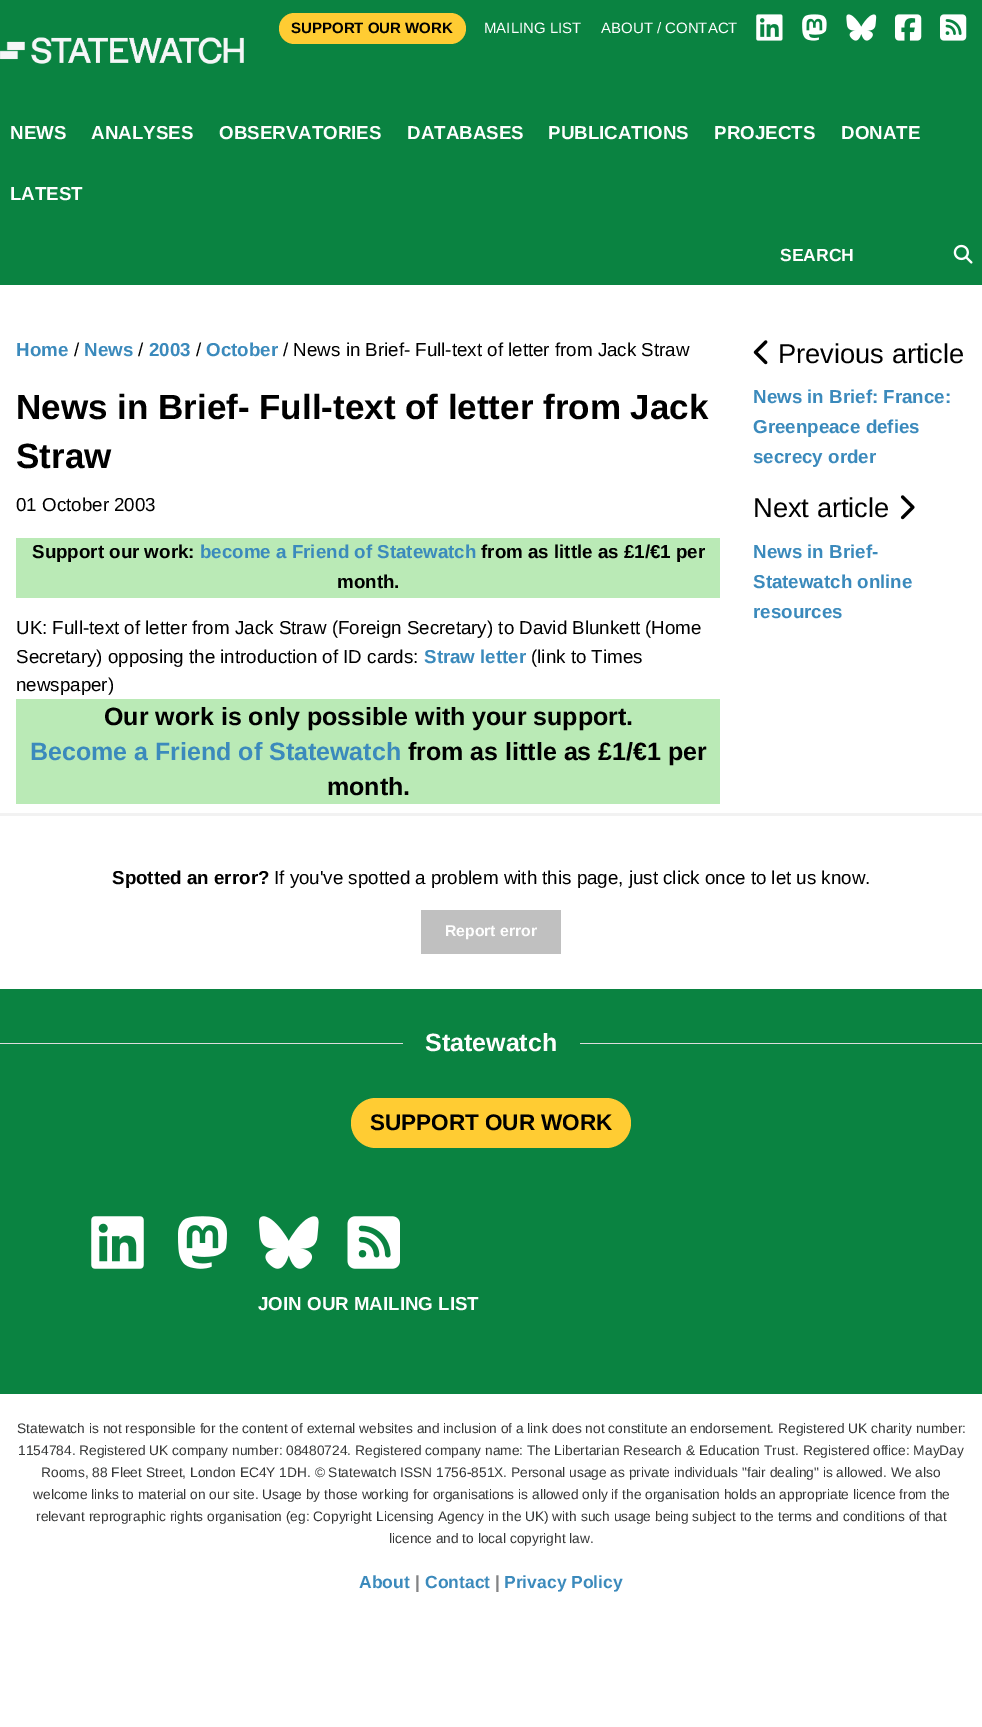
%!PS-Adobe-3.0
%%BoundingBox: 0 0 982 1727
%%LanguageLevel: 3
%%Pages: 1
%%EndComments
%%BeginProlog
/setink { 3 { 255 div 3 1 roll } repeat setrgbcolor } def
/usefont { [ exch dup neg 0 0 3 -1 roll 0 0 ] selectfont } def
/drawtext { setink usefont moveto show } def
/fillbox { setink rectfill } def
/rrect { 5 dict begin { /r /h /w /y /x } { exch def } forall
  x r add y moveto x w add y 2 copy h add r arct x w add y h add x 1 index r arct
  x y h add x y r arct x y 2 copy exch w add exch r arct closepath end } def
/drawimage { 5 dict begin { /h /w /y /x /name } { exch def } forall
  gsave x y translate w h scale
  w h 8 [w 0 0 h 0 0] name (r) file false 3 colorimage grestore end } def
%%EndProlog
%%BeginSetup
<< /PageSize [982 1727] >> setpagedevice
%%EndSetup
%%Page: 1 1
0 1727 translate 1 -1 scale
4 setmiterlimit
0 0 982 1727 255 255 255 fillbox
0 0 982 285 10 131 65 fillbox
255 204 51 setink
279 13 187 31 15.5 rrect fill
(SUPPORT OUR WORK) 291 33 /LiberationSans-Bold 15 0 0 0 drawtext
(MAILING LIST) 484 33 /LiberationSans-Regular 15 254 254 254 drawtext
(ABOUT / CONTACT) 601 33 /LiberationSans-Regular 15 254 254 254 drawtext
(assets/img1.rgb) 756 14 27 27 drawimage
(assets/img2.rgb) 802 14 25 27 drawimage
(assets/img3.rgb) 846 14 31 27 drawimage
(assets/img4.rgb) 895 14 27 27 drawimage
(assets/img5.rgb) 940 14 27 27 drawimage
(assets/img6.rgb) 0 37 244 27 drawimage
(NEWS) 10 139 /LiberationSans-Bold 18.75 254 254 254 drawtext
(ANALYSES) 91 139 /LiberationSans-Bold 18.75 254 254 254 drawtext
(OBSERVATORIES) 219 139 /LiberationSans-Bold 18.75 254 254 254 drawtext
(DATABASES) 407 139 /LiberationSans-Bold 18.75 254 254 254 drawtext
(PUBLICATIONS) 548 139 /LiberationSans-Bold 18.75 254 254 254 drawtext
(PROJECTS) 714 139 /LiberationSans-Bold 18.75 254 254 254 drawtext
(DONATE) 841 139 /LiberationSans-Bold 18.75 254 254 254 drawtext
(LATEST) 10 200 /LiberationSans-Bold 18.75 254 254 254 drawtext
(SEARCH) 780 261 /LiberationSans-Bold 17.5 254 254 254 drawtext
(assets/img7.rgb) 953 244 20 20 drawimage
0 813 982 3 242 242 242 fillbox
(Home) 16 356 /LiberationSans-Bold 18.75 59 138 188 drawtext
(/) 74 356 /LiberationSans-Regular 18.75 0 0 0 drawtext
(News) 84 356 /LiberationSans-Bold 18.75 59 138 188 drawtext
(/) 138 356 /LiberationSans-Regular 18.75 0 0 0 drawtext
(2003) 149 356 /LiberationSans-Bold 18.75 59 138 188 drawtext
(/) 196 356 /LiberationSans-Regular 18.75 0 0 0 drawtext
(October) 206 356 /LiberationSans-Bold 18.75 59 138 188 drawtext
(/ News in Brief- Full-text of letter from Jack Straw) 283 356 /LiberationSans-Regular 18.75 0 0 0 drawtext
(News in Brief- Full-text of letter from Jack) 16 419 /LiberationSans-Bold 35 0 0 0 drawtext
(Straw) 16 468 /LiberationSans-Bold 35 0 0 0 drawtext
(01 October 2003) 16 511 /LiberationSans-Regular 18.75 0 0 0 drawtext
16 538 704 60 186 234 182 fillbox
(Support our work:) 32 558 /LiberationSans-Bold 18.75 0 0 0 drawtext
(become a Friend of Statewatch) 200 558 /LiberationSans-Bold 18.75 59 138 188 drawtext
(from as little as £1/€1 per) 481 558 /LiberationSans-Bold 18.75 0 0 0 drawtext
(month.) 337 588 /LiberationSans-Bold 18.75 0 0 0 drawtext
(UK: Full-text of letter from Jack Straw \(Foreign Secretary\) to David Blunkett \(Home) 16 634 /LiberationSans-Regular 18.75 0 0 0 drawtext
(Secretary\) opposing the introduction of ID cards:) 16 663 /LiberationSans-Regular 18.75 0 0 0 drawtext
(Straw letter) 424 663 /LiberationSans-Bold 18.75 59 138 188 drawtext
(\(link to Times) 531 663 /LiberationSans-Regular 18.75 0 0 0 drawtext
(newspaper\)) 16 691 /LiberationSans-Regular 18.75 0 0 0 drawtext
16 699 704 105 186 234 182 fillbox
(Our work is only possible with your support.) 104 725 /LiberationSans-Bold 25 0 0 0 drawtext
(Become a Friend of Statewatch) 30 760 /LiberationSans-Bold 25 59 138 188 drawtext
(from as little as £1/€1 per) 408 760 /LiberationSans-Bold 25 0 0 0 drawtext
(month.) 327 795 /LiberationSans-Bold 25 0 0 0 drawtext
(assets/img8.rgb) 753 340 15 25 drawimage
(Previous article) 778 363 /LiberationSans-Regular 27.25 0 0 0 drawtext
(News in Brief: France:) 753 403 /LiberationSans-Bold 18.75 59 138 188 drawtext
(Greenpeace defies) 753 433 /LiberationSans-Bold 18.75 59 138 188 drawtext
(secrecy order) 753 463 /LiberationSans-Bold 18.75 59 138 188 drawtext
(Next article) 753 517 /LiberationSans-Regular 27.25 0 0 0 drawtext
(assets/img9.rgb) 900 495 15 25 drawimage
(News in Brief-) 753 558 /LiberationSans-Bold 18.75 59 138 188 drawtext
(Statewatch online) 753 588 /LiberationSans-Bold 18.75 59 138 188 drawtext
(resources) 753 618 /LiberationSans-Bold 18.75 59 138 188 drawtext
(Spotted an error?) 112 884 /LiberationSans-Bold 18.75 0 0 0 drawtext
(If you've spotted a problem with this page, just click once to let us know.) 274 884 /LiberationSans-Regular 18.75 0 0 0 drawtext
421 910 140 44 192 192 192 fillbox
(Report error) 445 936 /LiberationSans-Bold 15.75 254 254 254 drawtext
0 989 982 405 10 131 65 fillbox
0 1043 403 1 221 220 220 fillbox
(Statewatch) 425 1051 /LiberationSans-Bold 25 254 254 254 drawtext
580 1043 402 1 221 220 220 fillbox
255 204 51 setink
351 1098 280 50 25 rrect fill
(SUPPORT OUR WORK) 370 1130 /LiberationSans-Bold 22.5 0 0 0 drawtext
(assets/img10.rgb) 91 1216 53 53 drawimage
(assets/img11.rgb) 178 1216 49 53 drawimage
(assets/img12.rgb) 259 1216 60 53 drawimage
(assets/img13.rgb) 347 1216 53 53 drawimage
(JOIN OUR MAILING LIST) 258 1310 /LiberationSans-Bold 18.75 254 254 254 drawtext
(Statewatch is not responsible for the content of external websites and inclusion of a link does not constitute an endorsement. Registered UK charity number:) 17 1433 /LiberationSans-Regular 13.75 53 54 54 drawtext
(1154784. Registered UK company number: 08480724. Registered company name: The Libertarian Research & Education Trust. Registered office: MayDay) 18 1455 /LiberationSans-Regular 13.75 53 54 54 drawtext
(Rooms, 88 Fleet Street, London EC4Y 1DH. © Statewatch ISSN 1756-851X. Personal usage as private individuals "fair dealing" is allowed. We also) 41 1477 /LiberationSans-Regular 13.75 53 54 54 drawtext
(welcome links to material on our site. Usage by those working for organisations is allowed only if the organisation holds an appropriate licence from the) 33 1499 /LiberationSans-Regular 13.75 53 54 54 drawtext
(relevant reprographic rights organisation \(eg: Copyright Licensing Agency in the UK\) with such usage being subject to the terms and conditions of that) 36 1521 /LiberationSans-Regular 13.75 53 54 54 drawtext
(licence and to local copyright law.) 389 1543 /LiberationSans-Regular 13.75 53 54 54 drawtext
(About) 359 1588 /LiberationSans-Bold 17.5 59 138 188 drawtext
(|) 415 1588 /LiberationSans-Bold 17.5 130 131 132 drawtext
(Contact) 425 1588 /LiberationSans-Bold 17.5 59 138 188 drawtext
(|) 495 1588 /LiberationSans-Bold 17.5 130 131 132 drawtext
(Privacy Policy) 504 1588 /LiberationSans-Bold 17.5 59 138 188 drawtext
showpage
%%EOF
